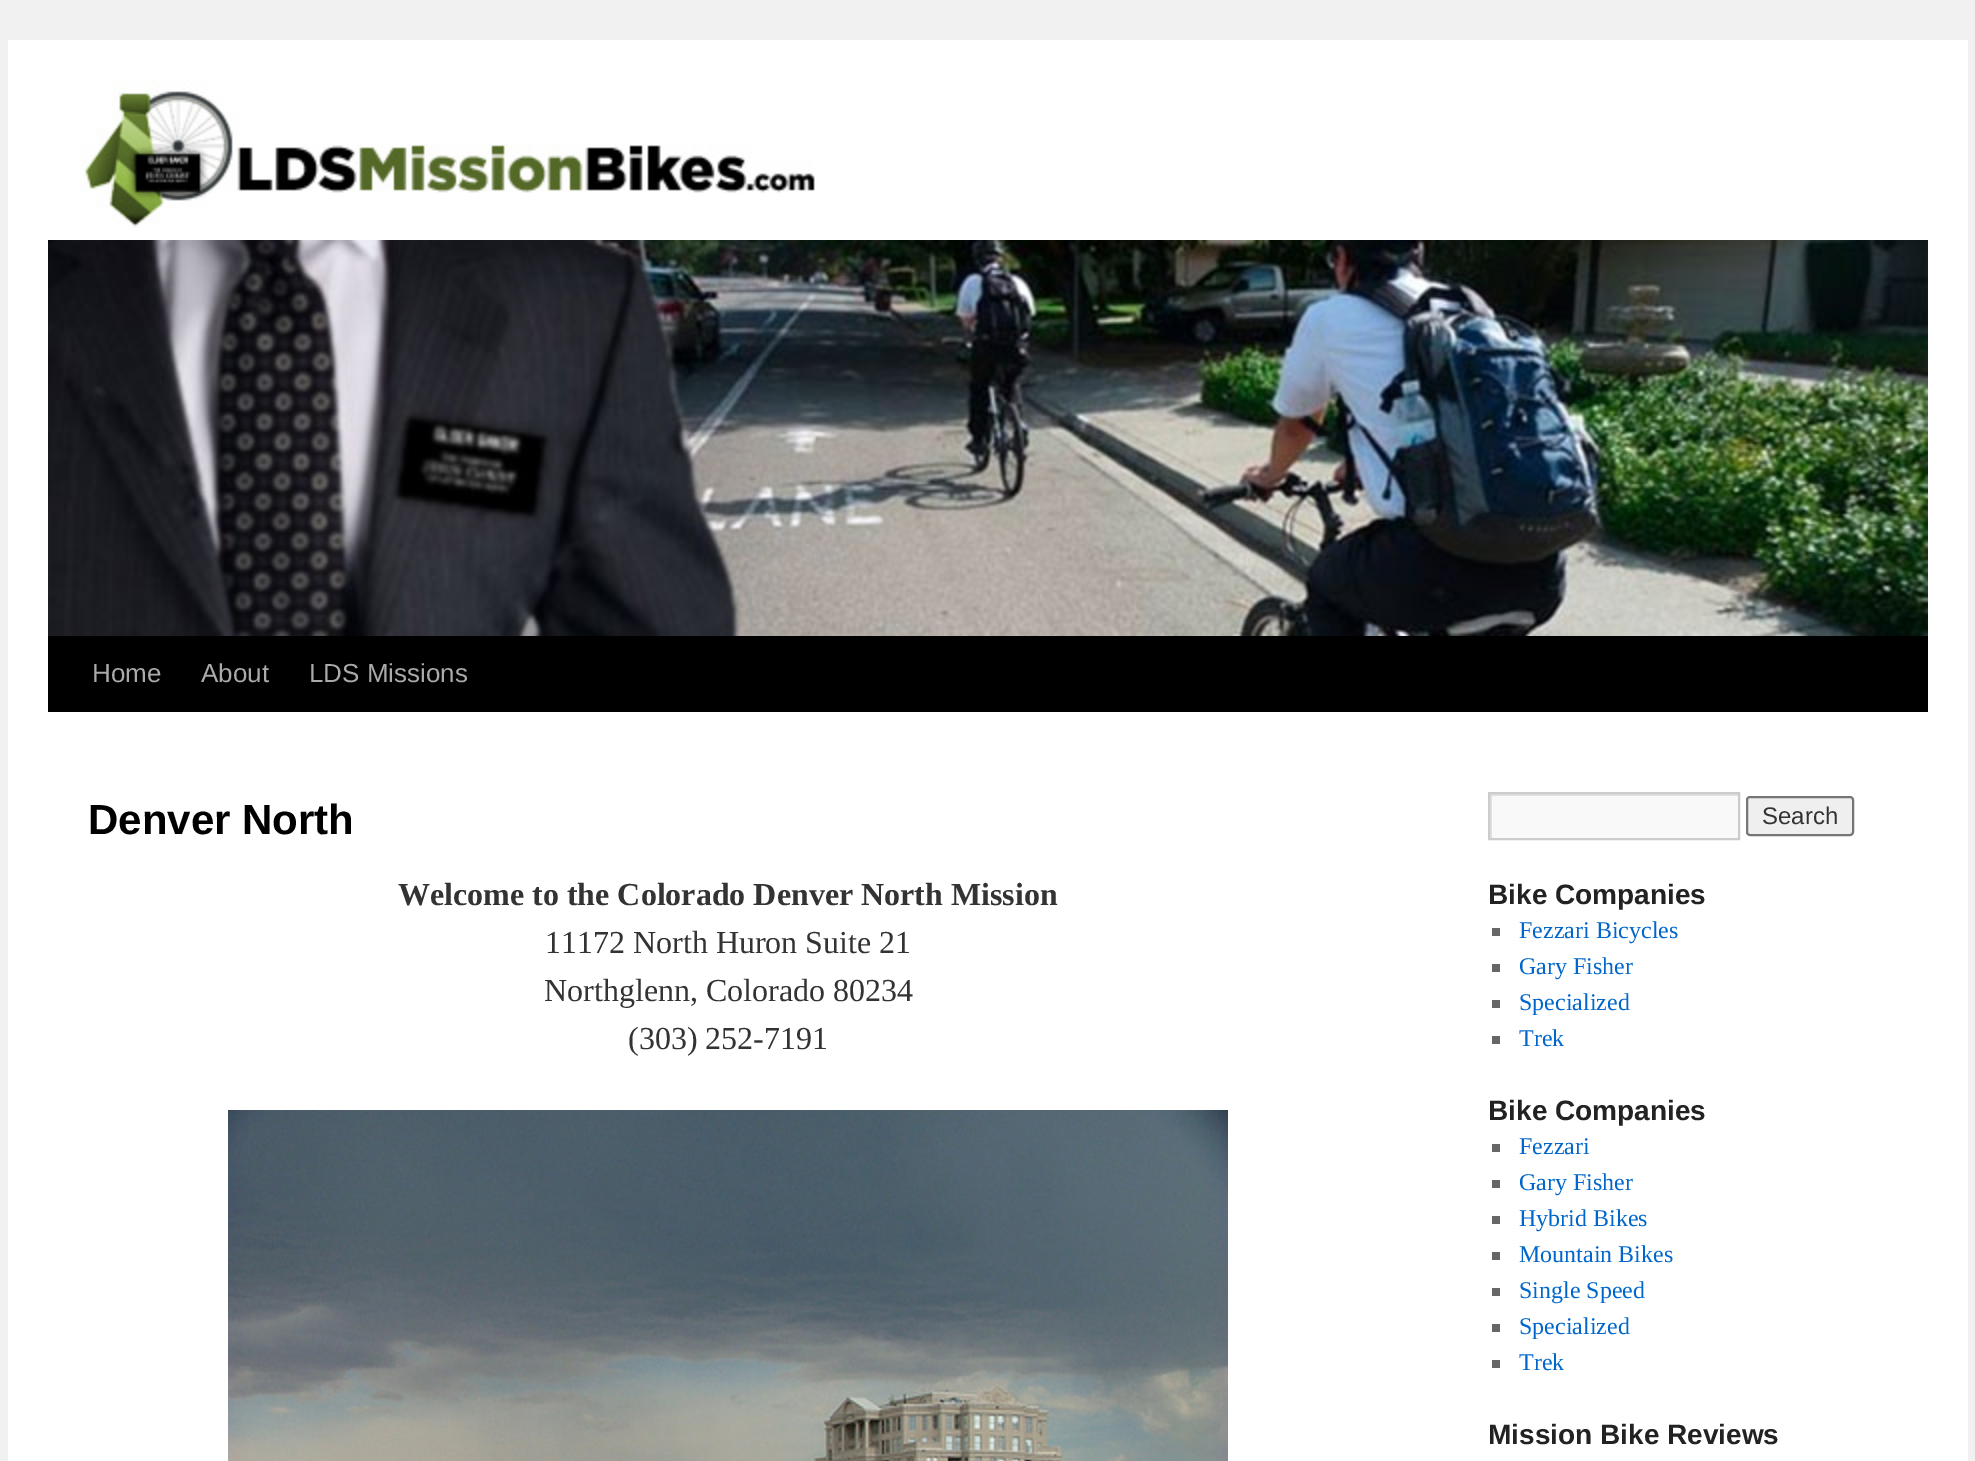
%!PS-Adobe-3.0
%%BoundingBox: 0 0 1975 1461
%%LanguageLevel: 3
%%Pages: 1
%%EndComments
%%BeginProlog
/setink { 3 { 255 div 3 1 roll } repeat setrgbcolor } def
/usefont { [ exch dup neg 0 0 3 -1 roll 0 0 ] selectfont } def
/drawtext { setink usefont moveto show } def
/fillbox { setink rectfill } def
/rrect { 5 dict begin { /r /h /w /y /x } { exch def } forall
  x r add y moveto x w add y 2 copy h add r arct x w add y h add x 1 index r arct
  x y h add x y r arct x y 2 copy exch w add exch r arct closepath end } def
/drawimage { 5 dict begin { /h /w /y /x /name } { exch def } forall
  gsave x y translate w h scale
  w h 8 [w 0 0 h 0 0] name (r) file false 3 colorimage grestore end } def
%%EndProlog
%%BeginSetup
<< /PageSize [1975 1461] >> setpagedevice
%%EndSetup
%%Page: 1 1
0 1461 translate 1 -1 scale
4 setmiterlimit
0 0 1975 1461 241 241 241 fillbox
8 40 1960 1421 255 255 255 fillbox
(assets/img1.rgb) 80 80 735 148 drawimage
(assets/img2.rgb) 48 240 1880 396 drawimage
48 636 1880 76 0 0 0 fillbox
(Home) 92 682 /LiberationSans-Regular 26 170 170 170 drawtext
(About) 201 682 /LiberationSans-Regular 26 170 170 170 drawtext
(LDS Missions) 309 682 /LiberationSans-Regular 26 170 170 170 drawtext
(Denver North) 88 834 /LiberationSans-Bold 42 0 0 0 drawtext
(Welcome to the Colorado Denver North Mission) 398 905 /LiberationSerif-Bold 32 51 51 51 drawtext
(11172 North Huron Suite 21) 545 953 /LiberationSerif-Regular 32 51 51 51 drawtext
(Northglenn, Colorado 80234) 544 1001 /LiberationSerif-Regular 32 51 51 51 drawtext
(\(303\) 252-7191) 628 1049 /LiberationSerif-Regular 32 51 51 51 drawtext
(assets/img3.rgb) 228 1110 1000 351 drawimage
1492 796 246 42 249 249 249 fillbox
gsave
1490 794 248 44 rectclip
224 224 224 setink
1292 596 moveto 1936 596 lineto 1936 1036 lineto 1292 1036 lineto closepath 1492 796 moveto 1740 796 lineto 1740 840 lineto 1492 840 lineto closepath eofill
grestore
204 204 204 setink
2 setlinewidth
1489 793 250 46 rectstroke
239 239 239 setink
1747 797 106 38 3 rrect gsave fill grestore
118 118 118 setink
stroke
(Search) 1762 824 /LiberationSans-Regular 24 51 51 51 drawtext
(Bike Companies) 1488 904 /LiberationSans-Bold 28 34 34 34 drawtext
1492 928 8 8 102 102 102 fillbox
(Fezzari Bicycles) 1519 938 /LiberationSerif-Regular 24 0 102 204 drawtext
1492 964 8 8 102 102 102 fillbox
(Gary Fisher) 1519 974 /LiberationSerif-Regular 24 0 102 204 drawtext
1492 1000 8 8 102 102 102 fillbox
(Specialized) 1519 1010 /LiberationSerif-Regular 24 0 102 204 drawtext
1492 1036 8 8 102 102 102 fillbox
(Trek) 1519 1046 /LiberationSerif-Regular 24 0 102 204 drawtext
(Bike Companies) 1488 1120 /LiberationSans-Bold 28 34 34 34 drawtext
1492 1144 8 8 102 102 102 fillbox
(Fezzari) 1519 1154 /LiberationSerif-Regular 24 0 102 204 drawtext
1492 1180 8 8 102 102 102 fillbox
(Gary Fisher) 1519 1190 /LiberationSerif-Regular 24 0 102 204 drawtext
1492 1216 8 8 102 102 102 fillbox
(Hybrid Bikes) 1519 1226 /LiberationSerif-Regular 24 0 102 204 drawtext
1492 1252 8 8 102 102 102 fillbox
(Mountain Bikes) 1519 1262 /LiberationSerif-Regular 24 0 102 204 drawtext
1492 1288 8 8 102 102 102 fillbox
(Single Speed) 1519 1298 /LiberationSerif-Regular 24 0 102 204 drawtext
1492 1324 8 8 102 102 102 fillbox
(Specialized) 1519 1334 /LiberationSerif-Regular 24 0 102 204 drawtext
1492 1360 8 8 102 102 102 fillbox
(Trek) 1519 1370 /LiberationSerif-Regular 24 0 102 204 drawtext
(Mission Bike Reviews) 1488 1444 /LiberationSans-Bold 28 34 34 34 drawtext
showpage
%%EOF
